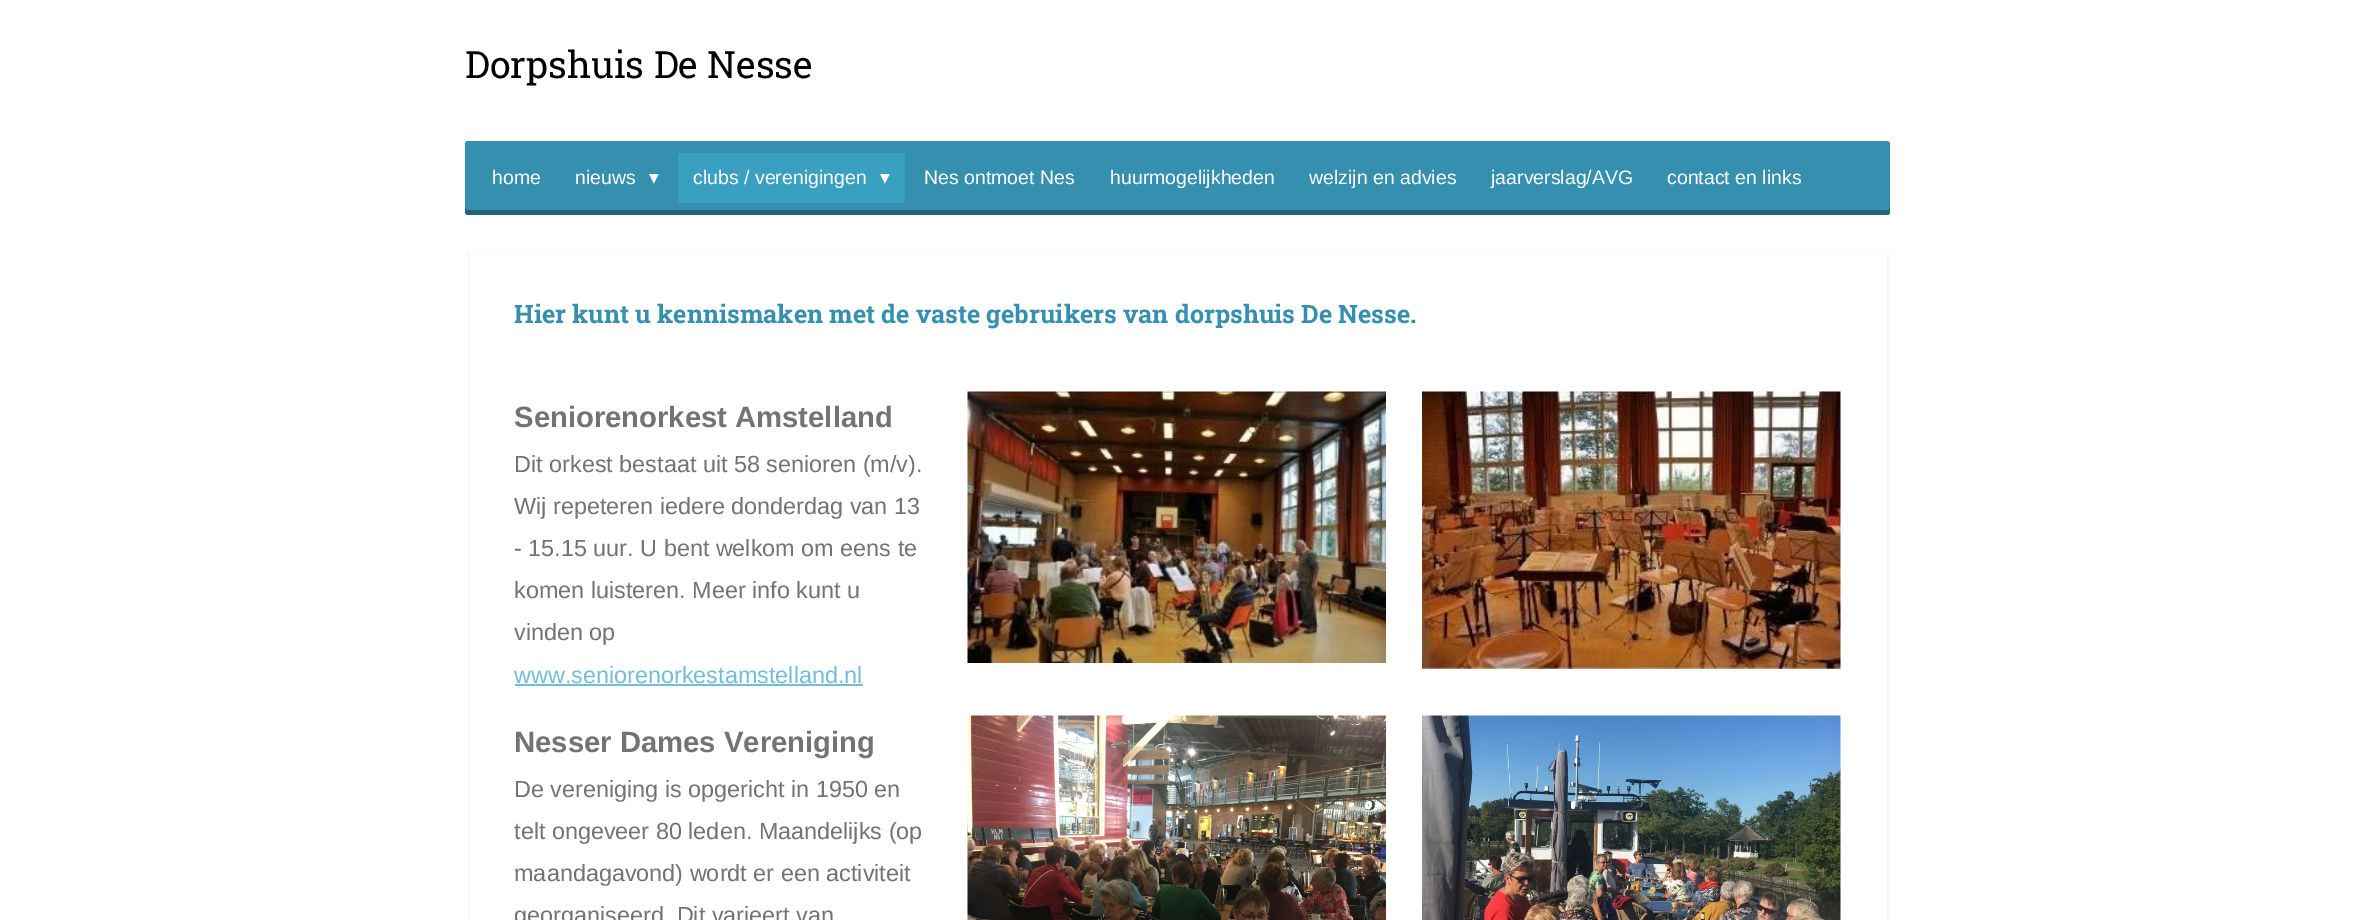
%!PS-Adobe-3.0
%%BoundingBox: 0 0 2354 920
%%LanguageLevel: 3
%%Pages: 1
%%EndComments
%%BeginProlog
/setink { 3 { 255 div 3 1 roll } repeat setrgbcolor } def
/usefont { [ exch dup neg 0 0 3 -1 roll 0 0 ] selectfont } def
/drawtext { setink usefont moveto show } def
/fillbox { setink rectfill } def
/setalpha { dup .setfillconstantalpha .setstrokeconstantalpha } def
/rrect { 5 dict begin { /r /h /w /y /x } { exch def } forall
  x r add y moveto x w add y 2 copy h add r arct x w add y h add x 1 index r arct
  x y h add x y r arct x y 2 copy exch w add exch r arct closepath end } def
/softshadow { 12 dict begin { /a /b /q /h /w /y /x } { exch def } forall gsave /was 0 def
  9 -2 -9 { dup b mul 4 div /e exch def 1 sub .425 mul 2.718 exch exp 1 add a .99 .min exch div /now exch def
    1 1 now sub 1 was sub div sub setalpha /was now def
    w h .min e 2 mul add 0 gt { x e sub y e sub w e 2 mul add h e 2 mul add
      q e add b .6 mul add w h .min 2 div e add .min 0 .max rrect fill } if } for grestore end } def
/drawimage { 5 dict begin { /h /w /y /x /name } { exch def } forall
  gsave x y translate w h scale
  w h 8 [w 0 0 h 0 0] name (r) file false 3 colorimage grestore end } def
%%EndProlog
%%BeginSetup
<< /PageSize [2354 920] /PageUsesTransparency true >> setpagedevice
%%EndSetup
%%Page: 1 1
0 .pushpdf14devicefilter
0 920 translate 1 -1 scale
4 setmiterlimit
0 0 2354 920 255 255 255 fillbox
(Dorpshuis De Nesse) 465 78 /RobotoSlab-Regular 37.5 0 0 0 drawtext
52 144 174 setink
465 141 1425 74 3 rrect fill
0.3 setalpha
0 0 0 setink
465 207 moveto 465 212 lineto 465 214 466 215 468 215 curveto 1887 215 lineto 1889 215 1890 214 1890 212 curveto 1890 207 lineto 1890 209 1889 210 1887 210 curveto 468 210 lineto 466 210 465 209 465 207 curveto closepath fill
1 setalpha
(home) 492 184 /LiberationSans-Regular 19.5 255 255 255 drawtext
(nieuws) 575 184 /LiberationSans-Regular 19.5 255 255 255 drawtext
(▾) 649 184 /DejaVuSans-Regular 19.5 255 255 255 drawtext
58 160 194 setink
678 153 227 50 3 rrect fill
(clubs / verenigingen) 693 184 /LiberationSans-Regular 19.5 255 255 255 drawtext
(▾) 880 184 /DejaVuSans-Regular 19.5 255 255 255 drawtext
(Nes ontmoet Nes) 924 184 /LiberationSans-Regular 19.5 255 255 255 drawtext
(huurmogelijkheden) 1110 184 /LiberationSans-Regular 19.5 255 255 255 drawtext
(welzijn en advies) 1309 184 /LiberationSans-Regular 19.5 255 255 255 drawtext
(jaarverslag/AVG) 1491 184 /LiberationSans-Regular 19.5 255 255 255 drawtext
(contact en links) 1667 184 /LiberationSans-Regular 19.5 255 255 255 drawtext
gsave
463 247 moveto 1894 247 lineto 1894 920 lineto 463 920 lineto closepath 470 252 moveto 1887 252 lineto 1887 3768 lineto 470 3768 lineto closepath eoclip newpath
0 0 0 setink
470 254 1417 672 0 2 0.1 softshadow
grestore
(Hier kunt u kennismaken met de vaste gebruikers van dorpshuis De Nesse.) 514 323 /RobotoSlab-Bold 25.2 52 144 174 drawtext
(Seniorenorkest Amstelland) 514 427 /LiberationSans-Bold 29.25 115 115 115 drawtext
(Dit orkest bestaat uit 58 senioren \(m/v\).) 514 472 /LiberationSans-Regular 23.4 115 115 115 drawtext
(Wij repeteren iedere donderdag van 13) 514 514 /LiberationSans-Regular 23.4 115 115 115 drawtext
(- 15.15 uur. U bent welkom om eens te) 514 556 /LiberationSans-Regular 23.4 115 115 115 drawtext
(komen luisteren. Meer info kunt u) 514 598 /LiberationSans-Regular 23.4 115 115 115 drawtext
(vinden op) 514 640 /LiberationSans-Regular 23.4 115 115 115 drawtext
(www.seniorenorkestamstelland.nl) 514 683 /LiberationSans-Regular 23.4 115 189 213 drawtext
515 684 348 2 115 189 213 fillbox
(assets/img1.rgb) 967 391 419 272 drawimage
(assets/img2.rgb) 1422 391 419 278 drawimage
(Nesser Dames Vereniging) 514 752 /LiberationSans-Bold 29.25 115 115 115 drawtext
(De vereniging is opgericht in 1950 en) 514 797 /LiberationSans-Regular 23.4 115 115 115 drawtext
(telt ongeveer 80 leden. Maandelijks \(op) 514 839 /LiberationSans-Regular 23.4 115 115 115 drawtext
(maandagavond\) wordt er een activiteit) 514 881 /LiberationSans-Regular 23.4 115 115 115 drawtext
(georganiseerd. Dit varieert van) 514 923 /LiberationSans-Regular 23.4 115 115 115 drawtext
(assets/img3.rgb) 967 715 419 205 drawimage
(assets/img4.rgb) 1422 715 419 205 drawimage
.poppdf14devicefilter showpage
%%EOF
